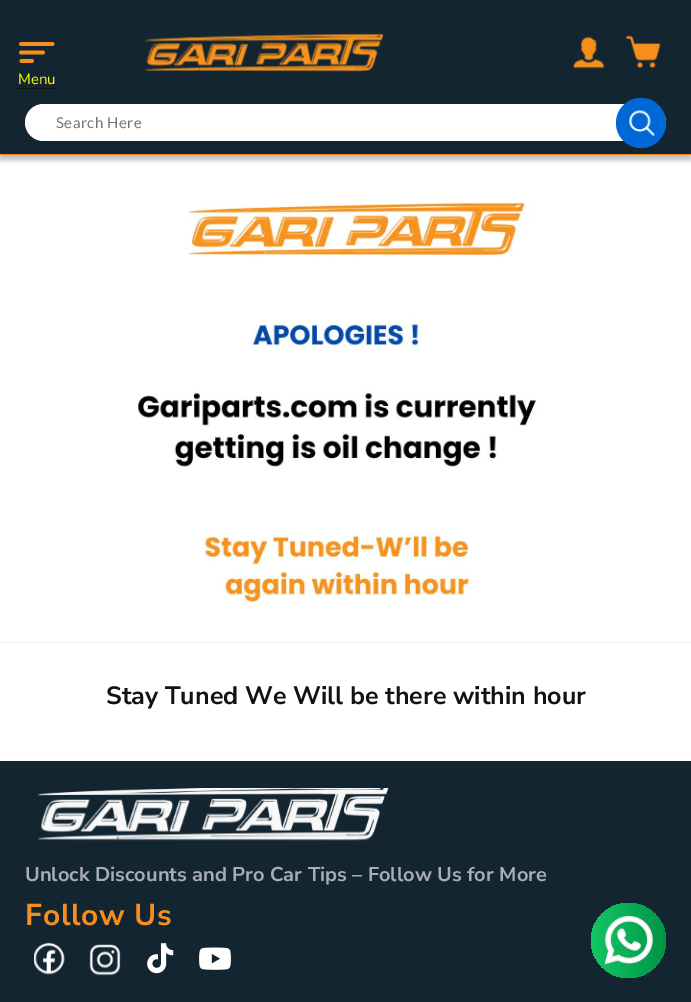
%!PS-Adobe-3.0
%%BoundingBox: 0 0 691 1002
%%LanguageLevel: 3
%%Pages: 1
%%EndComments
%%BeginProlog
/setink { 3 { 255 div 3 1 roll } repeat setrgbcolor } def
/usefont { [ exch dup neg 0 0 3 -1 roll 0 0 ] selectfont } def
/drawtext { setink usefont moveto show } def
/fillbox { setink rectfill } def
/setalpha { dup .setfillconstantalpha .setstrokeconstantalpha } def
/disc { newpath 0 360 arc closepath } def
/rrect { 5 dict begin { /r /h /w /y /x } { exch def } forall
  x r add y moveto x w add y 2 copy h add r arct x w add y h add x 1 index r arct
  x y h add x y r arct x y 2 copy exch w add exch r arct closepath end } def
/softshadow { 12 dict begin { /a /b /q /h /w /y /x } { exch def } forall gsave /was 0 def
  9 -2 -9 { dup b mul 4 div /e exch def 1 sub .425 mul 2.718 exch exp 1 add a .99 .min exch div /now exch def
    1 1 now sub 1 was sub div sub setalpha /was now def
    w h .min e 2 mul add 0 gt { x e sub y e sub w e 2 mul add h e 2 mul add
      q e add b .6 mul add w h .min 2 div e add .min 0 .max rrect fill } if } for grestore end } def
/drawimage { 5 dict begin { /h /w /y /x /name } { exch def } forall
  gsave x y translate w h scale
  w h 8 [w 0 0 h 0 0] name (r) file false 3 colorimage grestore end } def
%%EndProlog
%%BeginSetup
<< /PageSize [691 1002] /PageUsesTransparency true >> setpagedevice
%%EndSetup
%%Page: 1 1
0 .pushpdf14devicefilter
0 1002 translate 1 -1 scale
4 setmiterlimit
0 0 691 1002 255 255 255 fillbox
0 642 691 1 232 232 232 fillbox
(assets/img5.rgb) 0 155 691 488 drawimage
0 0 0 setink
0 5 691 155 0 2.5 0.25 softshadow
0 0 691 154 19 37 48 fillbox
0 154 691 1 246 142 30 fillbox
(assets/img1.rgb) 144 33 240 39 drawimage
(assets/img2.rgb) 573 36 32 33 drawimage
(assets/img3.rgb) 625 35 36 34 drawimage
3.8 setlinewidth
1 setlinecap
32 61 moveto 21.5 61 lineto 43 52.5 moveto 21 52.5 lineto 52.5 44 moveto 21 44 lineto stroke
(Menu) 18 84 /NunitoSans-Regular 15 255 255 0 drawtext
18 88 38 1 18 18 18 fillbox
255 255 255 setink
25 104 641 37 18.5 rrect fill
/Lato-Regular 15 usefont
117 117 117 setink
56 128 moveto 0.5 0 (Search Here) ashow
0 104 215 setink
641 123 25 disc fill
(assets/img4.rgb) 629 110 26 26 drawimage
(Stay Tuned We Will be there within hour) 106 704 /NunitoSans-Bold 25 18 18 18 drawtext
0 762 691 240 19 37 48 fillbox
0 761 691 1 19 35 46 fillbox
(assets/img6.rgb) 37 788 352 53 drawimage
(Unlock Discounts and Pro Car Tips – Follow Us for More) 25 881 /NunitoSans-Bold 20 167 173 180 drawtext
/NunitoSans-Bold 30 usefont
246 142 30 setink
25 925 moveto 0.75 0 (Follow Us) ashow
(assets/img7.rgb) 34 942 31 33 drawimage
(assets/img8.rgb) 89 944 32 32 drawimage
(assets/img9.rgb) 147 943 27 31 drawimage
(assets/img10.rgb) 199 947 32 23 drawimage
gsave 628.5 940.5 37.5 disc clip newpath
<< /ShadingType 2 /ColorSpace /DeviceRGB /Coords [591 940 666 940] /Extend [true true] /Function << /FunctionType 3 /Domain [0 1] /Functions [<< /FunctionType 2 /Domain [0 1] /C0 [0.071 0.776 0.396] /C1 [0.071 0.776 0.396] /N 1 >> << /FunctionType 2 /Domain [0 1] /C0 [0.071 0.776 0.396] /C1 [0 0.58 0.275] /N 1 >>] /Bounds [0.01] /Encode [0 1 0 1] >> >> shfill grestore
(assets/img11.rgb) 604 916 49 49 drawimage
.poppdf14devicefilter showpage
%%EOF
